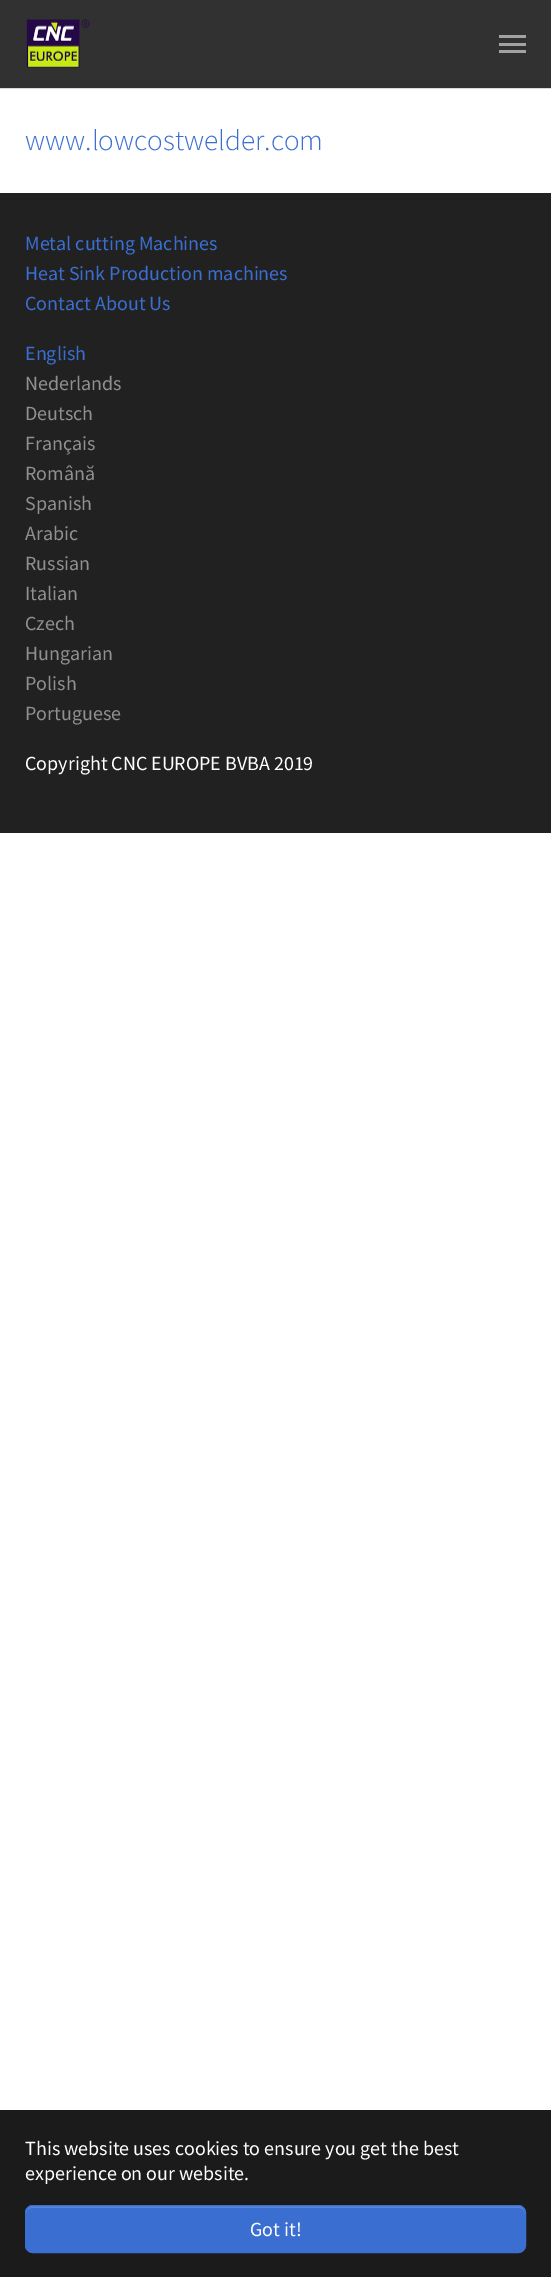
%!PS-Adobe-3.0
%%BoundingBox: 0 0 551 2277
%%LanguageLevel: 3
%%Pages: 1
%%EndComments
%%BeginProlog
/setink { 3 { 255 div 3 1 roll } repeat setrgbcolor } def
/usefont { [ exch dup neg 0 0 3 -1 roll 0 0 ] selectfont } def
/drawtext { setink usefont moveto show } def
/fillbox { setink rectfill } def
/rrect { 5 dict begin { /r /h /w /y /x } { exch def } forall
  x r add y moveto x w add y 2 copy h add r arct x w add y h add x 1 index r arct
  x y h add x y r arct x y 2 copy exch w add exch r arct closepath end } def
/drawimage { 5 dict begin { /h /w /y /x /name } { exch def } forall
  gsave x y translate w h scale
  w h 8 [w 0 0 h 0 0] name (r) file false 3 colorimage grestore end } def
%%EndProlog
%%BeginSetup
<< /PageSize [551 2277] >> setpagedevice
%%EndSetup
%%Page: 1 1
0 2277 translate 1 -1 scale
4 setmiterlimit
0 0 551 2277 255 255 255 fillbox
0 88 551 1 217 217 217 fillbox
0 0 551 88 49 49 49 fillbox
(assets/img1.rgb) 26 19 64 49 drawimage
499 43 27 3 162 162 162 fillbox
499 35 27 3 162 162 162 fillbox
499 50 27 3 162 162 162 fillbox
(www.lowcostwelder.com) 25 150 /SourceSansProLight-Light 29.25 58 111 209 drawtext
0 193 551 640 33 33 33 fillbox
(Metal cutting Machines) 25 250 /SourceSansPro-Regular 20 58 111 209 drawtext
(Heat Sink Production machines) 25 280 /SourceSansPro-Regular 20 58 111 209 drawtext
(Contact About Us) 25 310 /SourceSansPro-Regular 20 58 111 209 drawtext
(English) 25 360 /SourceSansPro-Regular 20 58 111 209 drawtext
(Nederlands) 25 390 /SourceSansPro-Regular 20 144 144 144 drawtext
(Deutsch) 25 420 /SourceSansPro-Regular 20 144 144 144 drawtext
(Français) 25 450 /SourceSansPro-Regular 20 144 144 144 drawtext
(Română) 25 480 /SourceSansPro-Regular 20 144 144 144 drawtext
(Spanish) 25 510 /SourceSansPro-Regular 20 144 144 144 drawtext
(Arabic) 25 540 /SourceSansPro-Regular 20 144 144 144 drawtext
(Russian) 25 570 /SourceSansPro-Regular 20 144 144 144 drawtext
(Italian) 25 600 /SourceSansPro-Regular 20 144 144 144 drawtext
(Czech) 25 630 /SourceSansPro-Regular 20 144 144 144 drawtext
(Hungarian) 25 660 /SourceSansPro-Regular 20 144 144 144 drawtext
(Polish) 25 690 /SourceSansPro-Regular 20 144 144 144 drawtext
(Portuguese) 25 720 /SourceSansPro-Regular 20 144 144 144 drawtext
(Copyright CNC EUROPE BVBA 2019) 25 770 /SourceSansPro-Regular 20 255 255 255 drawtext
0 2110 551 167 27 27 27 fillbox
(This website uses cookies to ensure you get the best) 25 2155 /SourceSansPro-Regular 20 255 255 255 drawtext
(experience on our website.) 25 2180 /SourceSansPro-Regular 20 255 255 255 drawtext
58 111 209 setink
25 2205 501 48 8 rrect fill
88 133 216 setink
32 2208 moveto 519 2208 lineto 522 2208 525 2210 525 2214 curveto 525 2210 524 2206 519 2206 curveto 32 2206 lineto 27 2206 26 2210 26 2214 curveto 26 2210 29 2208 32 2208 curveto closepath fill
58 111 209 setink
25.5 2205.5 500 47 7.5 rrect stroke
(Got it!) 250 2236 /SourceSansPro-Regular 20 255 255 255 drawtext
showpage
%%EOF
